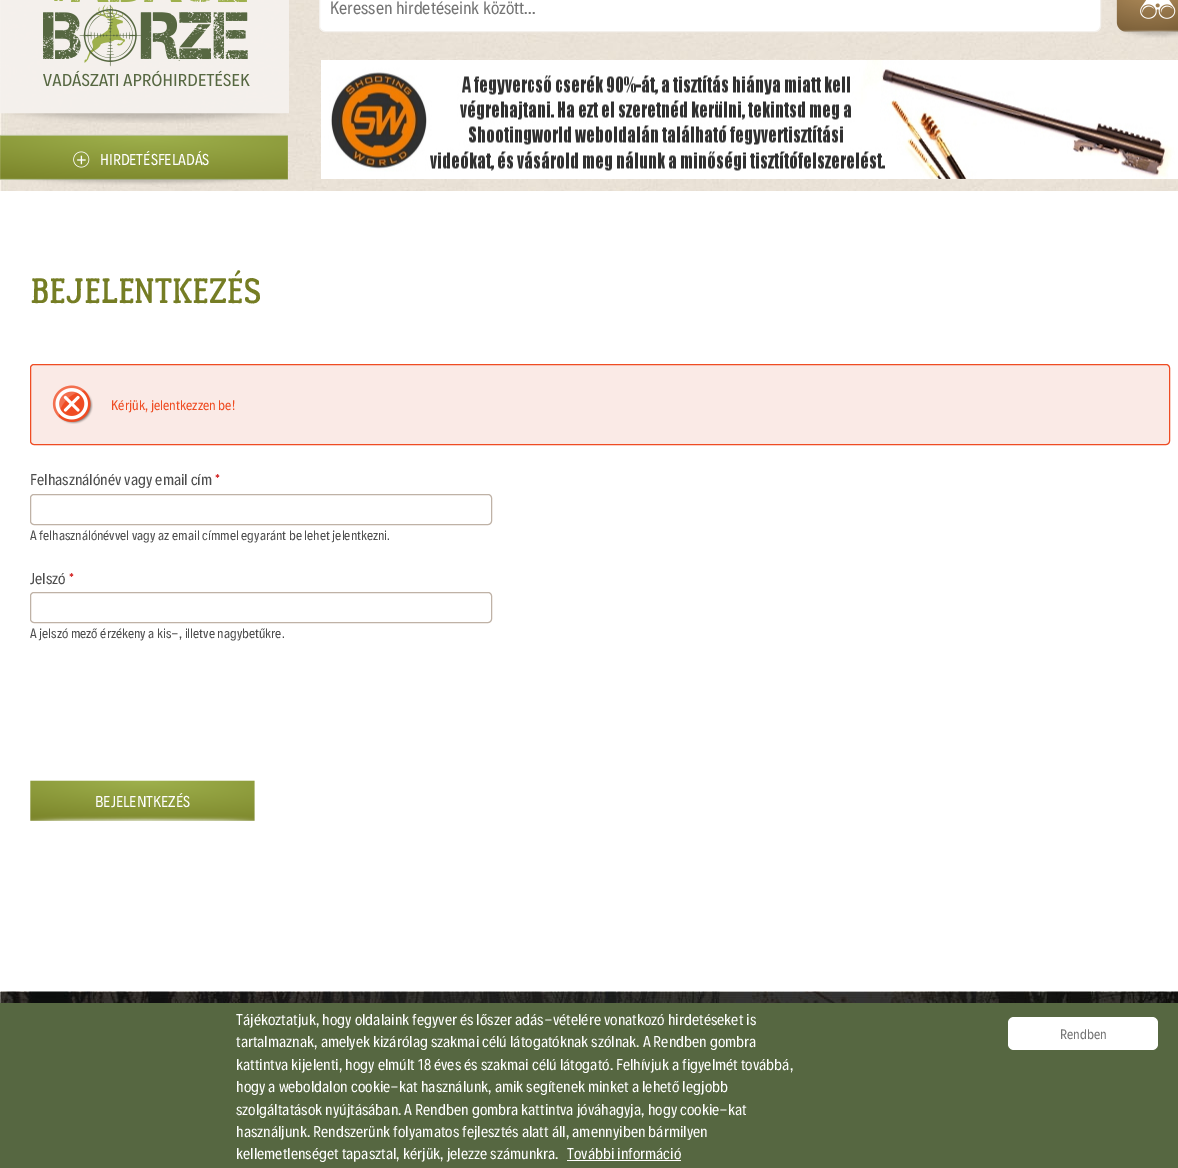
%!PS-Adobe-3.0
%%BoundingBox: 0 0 1178 1168
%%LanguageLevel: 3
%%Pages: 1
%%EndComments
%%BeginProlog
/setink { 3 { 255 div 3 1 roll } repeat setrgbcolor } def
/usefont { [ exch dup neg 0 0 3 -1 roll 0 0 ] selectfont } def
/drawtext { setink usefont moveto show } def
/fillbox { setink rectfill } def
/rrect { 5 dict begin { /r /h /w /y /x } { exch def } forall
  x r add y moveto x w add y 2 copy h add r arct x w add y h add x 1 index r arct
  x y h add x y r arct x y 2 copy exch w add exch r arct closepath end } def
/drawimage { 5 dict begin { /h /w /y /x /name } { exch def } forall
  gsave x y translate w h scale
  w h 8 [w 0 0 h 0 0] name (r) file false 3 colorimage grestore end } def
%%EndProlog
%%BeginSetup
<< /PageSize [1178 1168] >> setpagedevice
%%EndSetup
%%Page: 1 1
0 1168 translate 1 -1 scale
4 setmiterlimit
0 0 1178 1168 255 255 255 fillbox
(assets/img1.rgb) 0 0 1178 191 drawimage
(assets/img2.rgb) 0 0 289 123 drawimage
319.5 -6.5 781 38 5.5 rrect gsave fill grestore
244 241 237 setink
stroke
(Keressen hirdetéseink között...) 330 14 /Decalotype-Regular 18 117 117 117 drawtext
(assets/img3.rgb) 1116 0 62 38 drawimage
(assets/img4.rgb) 0 134 288 51 drawimage
(HIRDETÉSFELADÁS) 100 165 /Decalotype-Regular 16 255 255 255 drawtext
(assets/img5.rgb) 321 60 857 119 drawimage
(BEJELENTKEZÉS) 30 303 /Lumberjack-Regular 35.25 117 125 36 drawtext
250 234 230 setink
30 364 1140 81 4 rrect fill
(assets/img6.rgb) 52 385 41 39 drawimage
239 76 35 setink
30.5 364.5 1139 80 3.5 rrect stroke
(Kérjük, jelentkezzen be!) 111 410 /Decalotype-Regular 14 239 76 35 drawtext
(Felhasználónév vagy email cím) 30 485 /Decalotype-Regular 16 77 77 77 drawtext
(*) 215 485 /Decalotype-Regular 16 204 0 0 drawtext
191 178 166 setink
30.5 494.5 461 30 3.5 rrect stroke
(A felhasználónévvel vagy az email címmel egyaránt be lehet jelentkezni.) 30 540 /Decalotype-Regular 13.6 77 77 77 drawtext
(Jelszó) 30 584 /Decalotype-Regular 16 77 77 77 drawtext
(*) 69 584 /Decalotype-Regular 16 204 0 0 drawtext
191 178 166 setink
30.5 592.5 461 30 3.5 rrect stroke
(A jelszó mező érzékeny a kis-, illetve nagybetűkre.) 30 638 /Decalotype-Regular 13.6 77 77 77 drawtext
(assets/img7.rgb) 30 780 225 41 drawimage
(BEJELENTKEZÉS) 95 807 /Decalotype-Regular 16 255 255 255 drawtext
(assets/img8.rgb) 0 991 1178 12 drawimage
0 1003 1178 165 86 103 65 fillbox
(Tájékoztatjuk, hogy oldalaink fegyver és lőszer adás-vételére vonatkozó hirdetéseket is) 236 1025 /Decalotype-Regular 16 255 255 255 drawtext
(tartalmaznak, amelyek kizárólag szakmai célú látogatóknak szólnak. A Rendben gombra) 236 1047 /Decalotype-Regular 16 255 255 255 drawtext
(kattintva kijelenti, hogy elmúlt 18 éves és szakmai célú látogató. Felhívjuk a figyelmét továbbá,) 236 1070 /Decalotype-Regular 16 255 255 255 drawtext
(hogy a weboldalon cookie-kat használunk, amik segítenek minket a lehető legjobb) 236 1092 /Decalotype-Regular 16 255 255 255 drawtext
(szolgáltatások nyújtásában. A Rendben gombra kattintva jóváhagyja, hogy cookie-kat) 236 1115 /Decalotype-Regular 16 255 255 255 drawtext
(használjunk. Rendszerünk folyamatos fejlesztés alatt áll, amennyiben bármilyen) 236 1137 /Decalotype-Regular 16 255 255 255 drawtext
(kellemetlenséget tapasztal, kérjük, jelezze számunkra.) 236 1159 /Decalotype-Regular 16 255 255 255 drawtext
(További információ) 567 1159 /Decalotype-Regular 16 255 255 255 drawtext
567 1160 114 1 255 255 255 fillbox
1008 1017 150 33 6 rrect fill
(Rendben) 1060 1039 /Decalotype-Regular 14 117 117 117 drawtext
showpage
%%EOF
